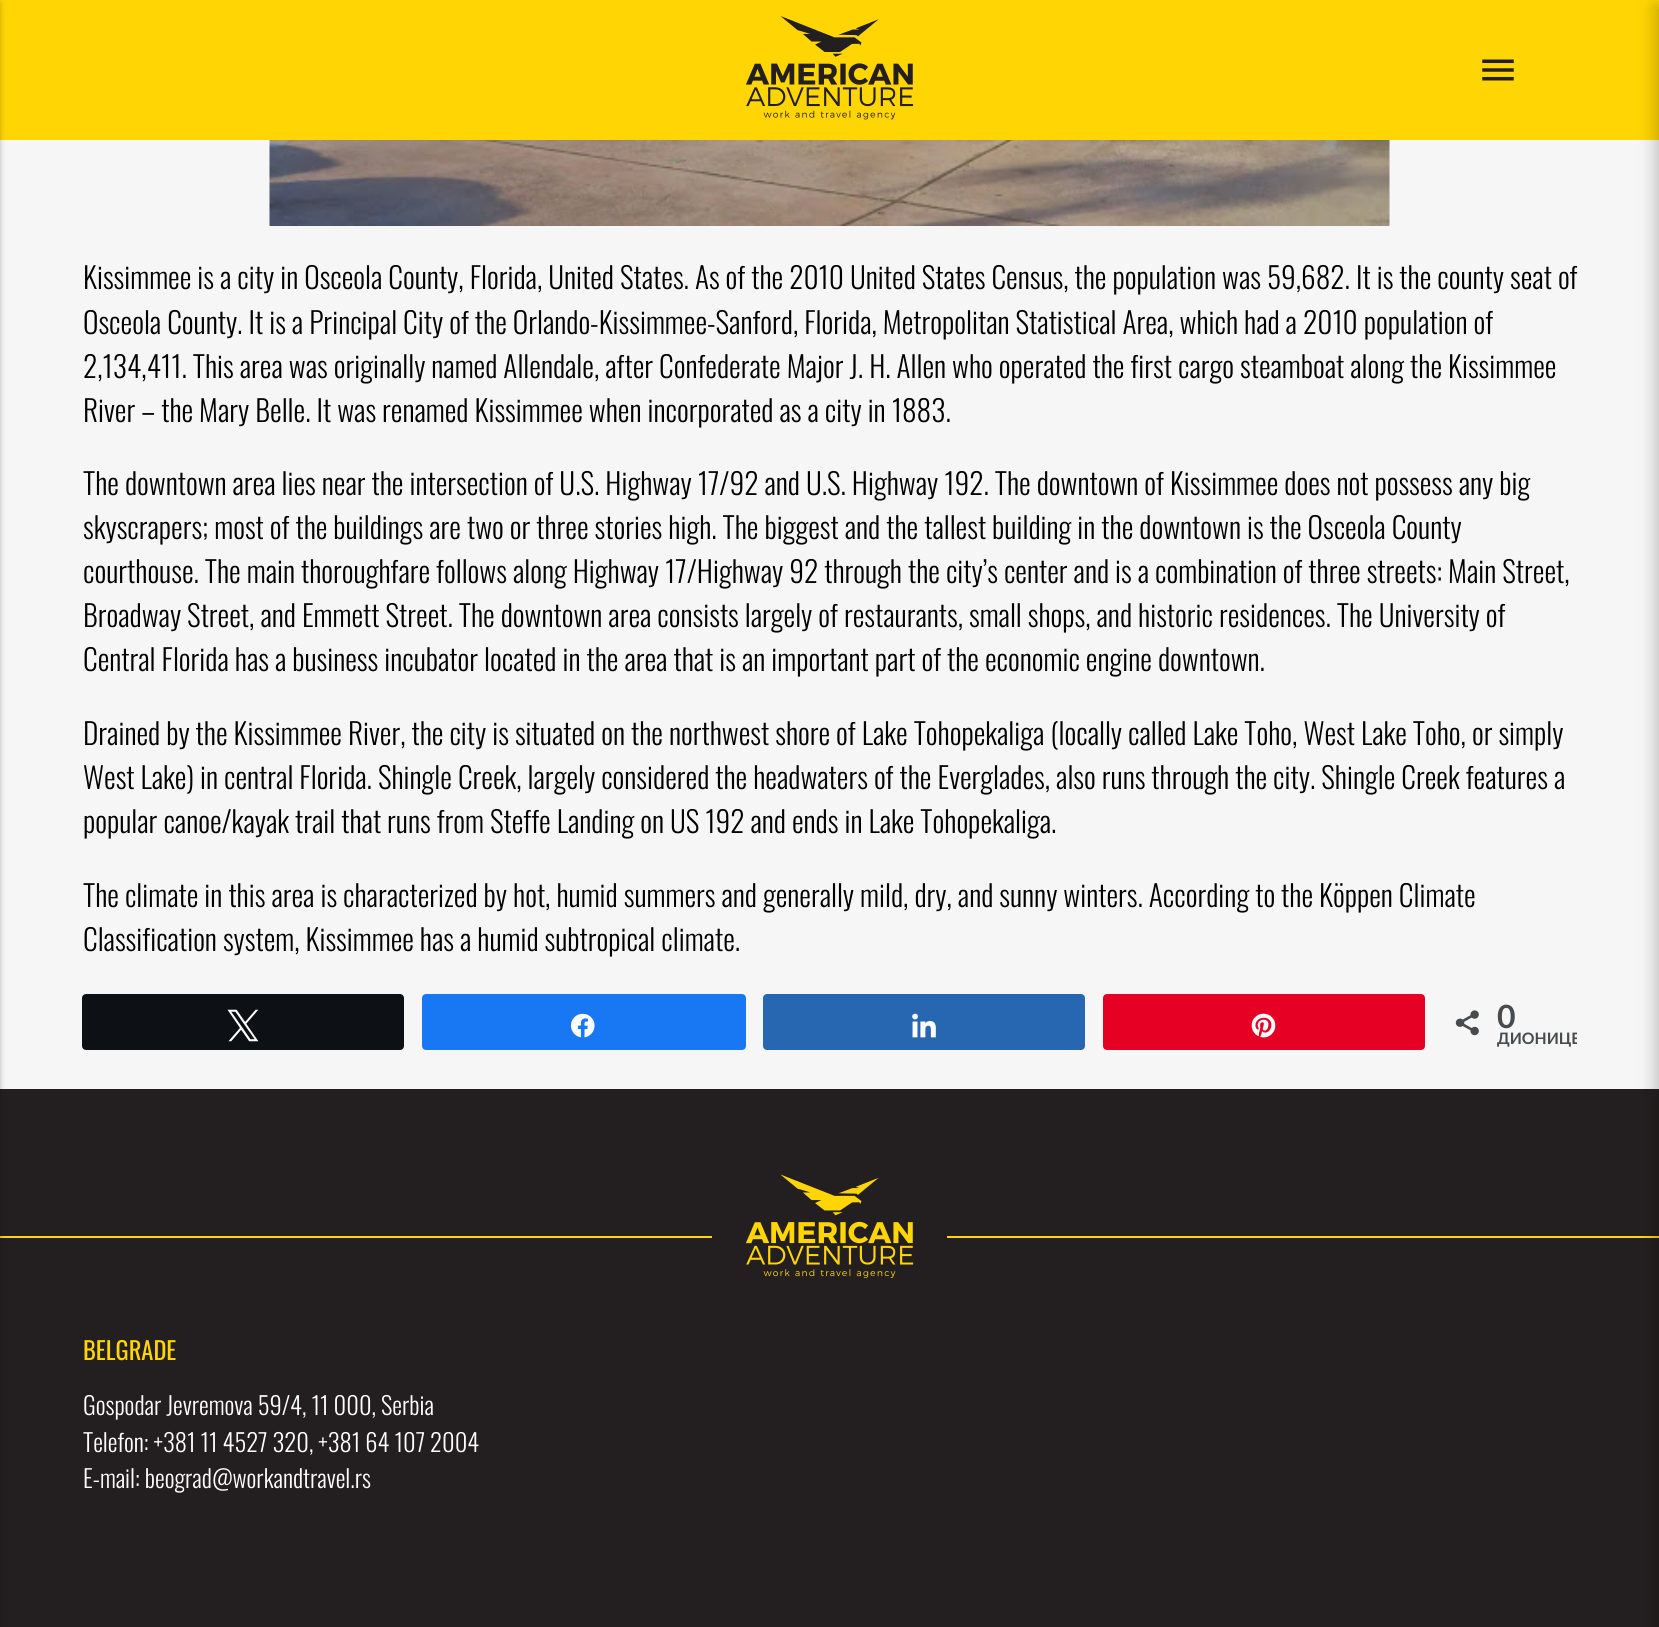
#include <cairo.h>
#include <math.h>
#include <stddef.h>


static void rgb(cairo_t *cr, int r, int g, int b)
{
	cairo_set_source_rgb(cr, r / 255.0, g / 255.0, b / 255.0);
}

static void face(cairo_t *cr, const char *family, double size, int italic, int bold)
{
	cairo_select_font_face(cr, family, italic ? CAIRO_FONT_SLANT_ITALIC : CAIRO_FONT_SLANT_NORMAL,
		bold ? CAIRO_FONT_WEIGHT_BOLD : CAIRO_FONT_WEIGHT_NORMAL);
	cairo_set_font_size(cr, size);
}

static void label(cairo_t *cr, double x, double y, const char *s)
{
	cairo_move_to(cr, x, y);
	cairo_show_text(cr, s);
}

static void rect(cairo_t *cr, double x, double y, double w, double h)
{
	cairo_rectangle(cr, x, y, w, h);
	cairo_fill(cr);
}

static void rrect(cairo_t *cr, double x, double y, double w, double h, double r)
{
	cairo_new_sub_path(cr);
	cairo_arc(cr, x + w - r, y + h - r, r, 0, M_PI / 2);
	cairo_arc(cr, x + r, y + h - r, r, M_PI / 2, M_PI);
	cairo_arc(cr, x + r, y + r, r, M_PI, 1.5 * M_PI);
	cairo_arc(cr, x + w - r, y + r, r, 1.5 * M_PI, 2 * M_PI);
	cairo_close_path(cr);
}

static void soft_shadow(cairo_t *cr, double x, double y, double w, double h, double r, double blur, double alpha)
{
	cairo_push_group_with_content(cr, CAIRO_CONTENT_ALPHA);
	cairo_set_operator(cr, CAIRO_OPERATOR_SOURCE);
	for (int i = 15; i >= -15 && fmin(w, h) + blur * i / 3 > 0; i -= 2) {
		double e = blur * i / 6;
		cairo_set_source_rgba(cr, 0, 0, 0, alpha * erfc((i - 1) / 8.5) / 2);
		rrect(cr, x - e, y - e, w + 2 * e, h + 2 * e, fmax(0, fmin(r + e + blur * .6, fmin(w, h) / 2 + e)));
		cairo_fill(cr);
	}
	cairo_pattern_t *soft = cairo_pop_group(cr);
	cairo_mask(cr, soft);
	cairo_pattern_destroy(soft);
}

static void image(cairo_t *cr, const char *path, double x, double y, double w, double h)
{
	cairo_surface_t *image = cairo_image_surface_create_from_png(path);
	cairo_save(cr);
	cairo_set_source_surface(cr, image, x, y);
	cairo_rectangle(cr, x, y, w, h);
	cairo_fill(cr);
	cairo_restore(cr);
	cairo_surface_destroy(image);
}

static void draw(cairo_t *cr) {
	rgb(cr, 246, 246, 246);
	cairo_paint(cr);
	rgb(cr, 255, 213, 3);
	rect(cr, 0, 0, 1659, 140);
	image(cr, "image0.png", 746, 16, 168, 104);
	image(cr, "image1.png", 1482, 59, 32, 22);
	rgb(cr, 35, 31, 32);
	rect(cr, 0, 1089, 1659, 538);
	rgb(cr, 255, 213, 3);
	rect(cr, 0, 1236, 1659, 2);
	rgb(cr, 0, 0, 0);
	soft_shadow(cr, -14, 2, 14, 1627, 0, 4.5, 0.12);
	soft_shadow(cr, -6, 4, 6, 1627, 0, 2, 0.14);
	image(cr, "image2.png", 269, 140, 1121, 86);
	face(cr, "Oswald Light", 29.4, 0, 0);
	rgb(cr, 0, 0, 0);
	label(cr, 83, 289, "Kissimmee is a city in Osceola County, Florida, United States. As of the 2010 United States Census, the population was 59,682. It is the county seat of");
	label(cr, 83, 334, "Osceola County. It is a Principal City of the Orlando-Kissimmee-Sanford, Florida, Metropolitan Statistical Area, which had a 2010 population of");
	label(cr, 83, 378, "2,134,411. This area was originally named Allendale, after Confederate Major J. H. Allen who operated the first cargo steamboat along the Kissimmee");
	label(cr, 83, 422, "River – the Mary Belle. It was renamed Kissimmee when incorporated as a city in 1883.");
	label(cr, 83, 495, "The downtown area lies near the intersection of U.S. Highway 17/92 and U.S. Highway 192. The downtown of Kissimmee does not possess any big");
	label(cr, 83, 539, "skyscrapers; most of the buildings are two or three stories high. The biggest and the tallest building in the downtown is the Osceola County");
	label(cr, 83, 583, "courthouse. The main thoroughfare follows along Highway 17/Highway 92 through the city’s center and is a combination of three streets: Main Street,");
	label(cr, 83, 627, "Broadway Street, and Emmett Street. The downtown area consists largely of restaurants, small shops, and historic residences. The University of");
	label(cr, 83, 671, "Central Florida has a business incubator located in the area that is an important part of the economic engine downtown.");
	label(cr, 83, 745, "Drained by the Kissimmee River, the city is situated on the northwest shore of Lake Tohopekaliga (locally called Lake Toho, West Lake Toho, or simply");
	label(cr, 83, 789, "West Lake) in central Florida. Shingle Creek, largely considered the headwaters of the Everglades, also runs through the city. Shingle Creek features a");
	label(cr, 83, 833, "popular canoe/kayak trail that runs from Steffe Landing on US 192 and ends in Lake Tohopekaliga.");
	label(cr, 83, 907, "The climate in this area is characterized by hot, humid summers and generally mild, dry, and sunny winters. According to the Köppen Climate");
	label(cr, 83, 951, "Classification system, Kissimmee has a humid subtropical climate.");
	rgb(cr, 13, 16, 20);
	rrect(cr, 83, 995, 320, 54, 3);
	cairo_fill_preserve(cr);
	cairo_stroke(cr);
	image(cr, "image3.png", 227, 1009, 32, 33);
	rgb(cr, 24, 119, 242);
	rrect(cr, 423, 995, 322, 54, 3);
	cairo_fill_preserve(cr);
	cairo_stroke(cr);
	image(cr, "image4.png", 570, 1013, 25, 25);
	rgb(cr, 39, 103, 177);
	rrect(cr, 764, 995, 320, 54, 3);
	cairo_fill_preserve(cr);
	cairo_stroke(cr);
	image(cr, "image5.png", 912, 1013, 24, 25);
	rgb(cr, 230, 0, 35);
	rrect(cr, 1104, 995, 320, 54, 3);
	cairo_fill_preserve(cr);
	cairo_stroke(cr);
	image(cr, "image6.png", 1251, 1013, 25, 25);
	image(cr, "image7.png", 1455, 1010, 24, 26);
	face(cr, "Lato", 32, 0, 1);
	rgb(cr, 71, 75, 77);
	label(cr, 1497, 1028, "0");
	cairo_save(cr);
	cairo_rectangle(cr, 82, 994, 1495, 60);
	cairo_clip(cr);
	face(cr, "Lato", 15.75, 0, 1);
	label(cr, 1497, 1044, "ДИОНИЦЕ");
	cairo_restore(cr);
	rgb(cr, 0, 0, 0);
	soft_shadow(cr, 1654, 5, 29, 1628, 0, 8, 0.2);
	rgb(cr, 35, 31, 32);
	rect(cr, 712, 1236, 235, 2);
	image(cr, "image8.png", 746, 1174, 168, 104);
	face(cr, "Oswald", 24.5, 0, 0);
	rgb(cr, 255, 213, 3);
	label(cr, 83, 1360, "BELGRADE");
	face(cr, "Oswald Light", 24.5, 0, 0);
	rgb(cr, 255, 255, 255);
	label(cr, 83, 1415, "Gospodar Jevremova 59/4, 11 000, Serbia");
	label(cr, 83, 1452, "Telefon: +381 11 4527 320, +381 64 107 2004");
	label(cr, 83, 1488, "E-mail: beograd@workandtravel.rs");
}

int main(void) {
	cairo_surface_t *surface = cairo_image_surface_create(CAIRO_FORMAT_RGB24, 1659, 1627);
	cairo_t *cr = cairo_create(surface);
	cairo_font_options_t *options = cairo_font_options_create();
	cairo_font_options_set_hint_metrics(options, CAIRO_HINT_METRICS_OFF);
	cairo_font_options_set_hint_style(options, CAIRO_HINT_STYLE_NONE);
	cairo_set_font_options(cr, options);
	cairo_set_miter_limit(cr, 4);
	draw(cr);
	cairo_surface_write_to_png(surface, "render.png");
	cairo_font_options_destroy(options);
	cairo_destroy(cr);
	cairo_surface_destroy(surface);
	return 0;
}
